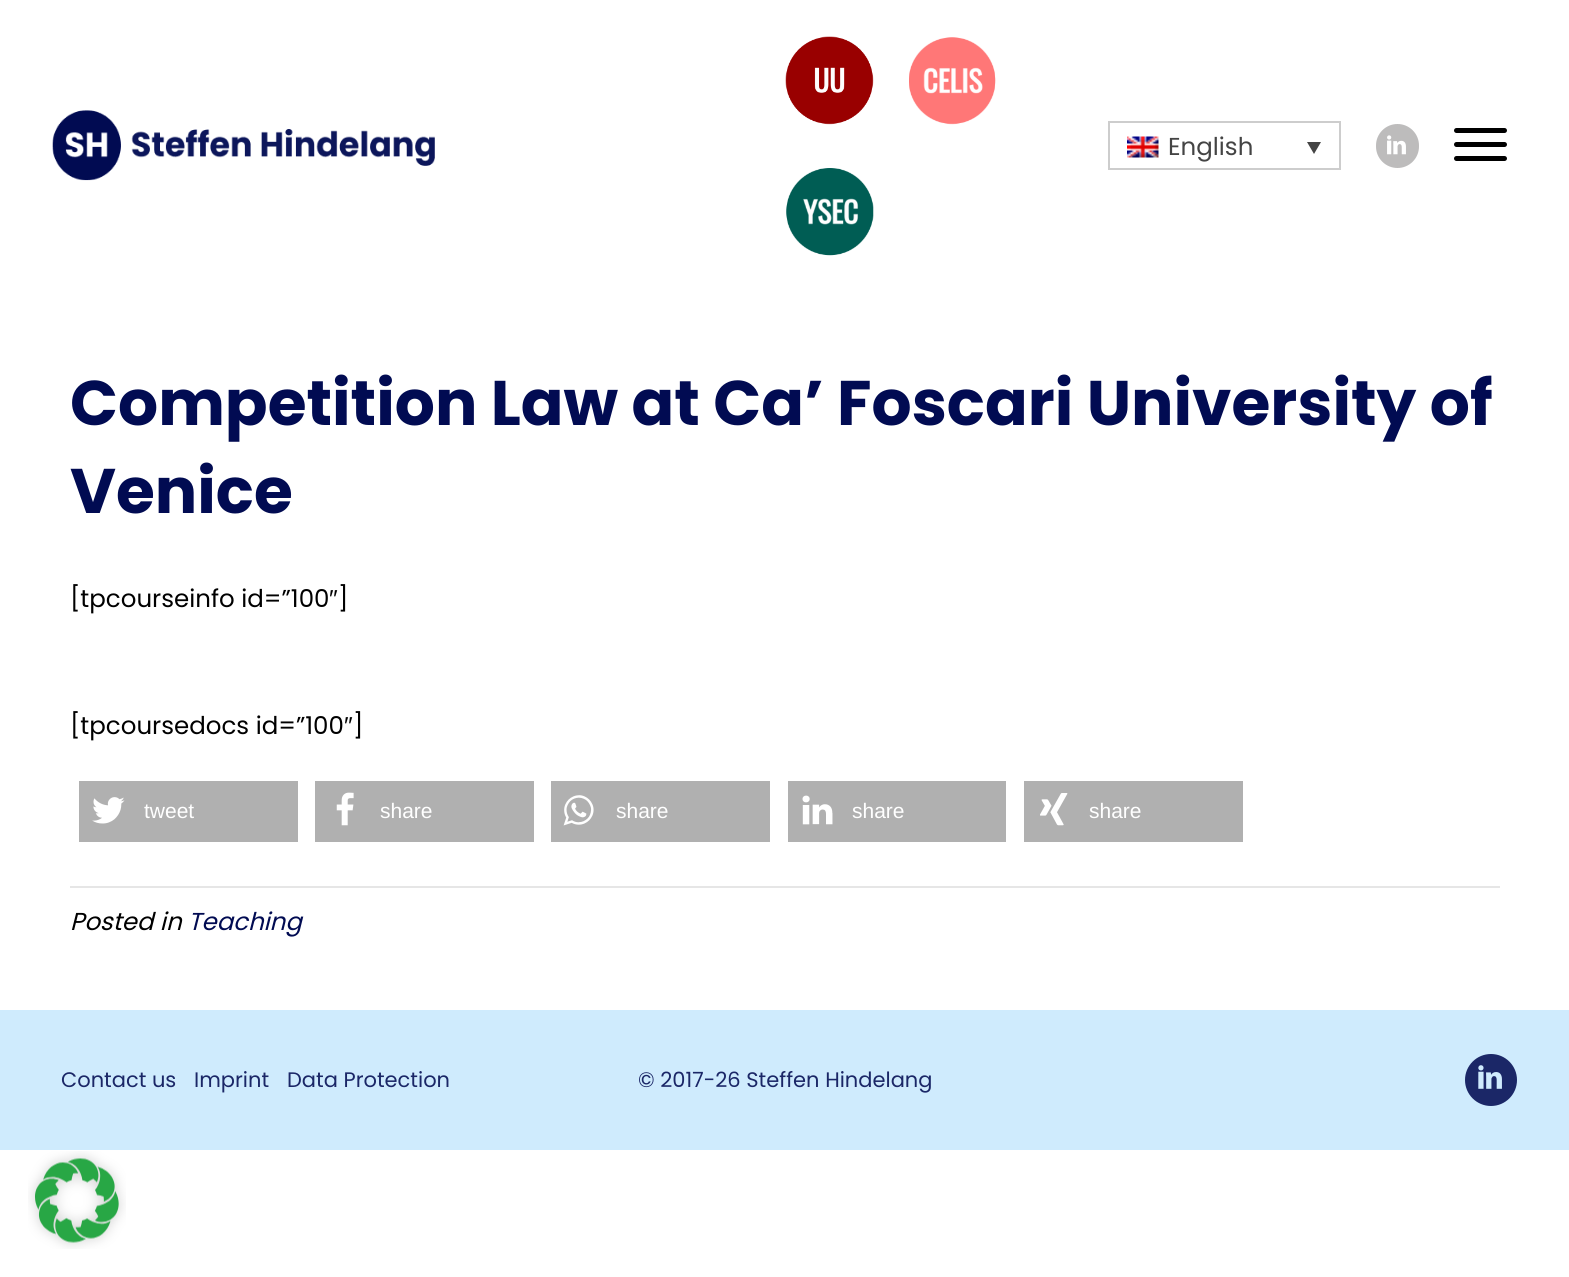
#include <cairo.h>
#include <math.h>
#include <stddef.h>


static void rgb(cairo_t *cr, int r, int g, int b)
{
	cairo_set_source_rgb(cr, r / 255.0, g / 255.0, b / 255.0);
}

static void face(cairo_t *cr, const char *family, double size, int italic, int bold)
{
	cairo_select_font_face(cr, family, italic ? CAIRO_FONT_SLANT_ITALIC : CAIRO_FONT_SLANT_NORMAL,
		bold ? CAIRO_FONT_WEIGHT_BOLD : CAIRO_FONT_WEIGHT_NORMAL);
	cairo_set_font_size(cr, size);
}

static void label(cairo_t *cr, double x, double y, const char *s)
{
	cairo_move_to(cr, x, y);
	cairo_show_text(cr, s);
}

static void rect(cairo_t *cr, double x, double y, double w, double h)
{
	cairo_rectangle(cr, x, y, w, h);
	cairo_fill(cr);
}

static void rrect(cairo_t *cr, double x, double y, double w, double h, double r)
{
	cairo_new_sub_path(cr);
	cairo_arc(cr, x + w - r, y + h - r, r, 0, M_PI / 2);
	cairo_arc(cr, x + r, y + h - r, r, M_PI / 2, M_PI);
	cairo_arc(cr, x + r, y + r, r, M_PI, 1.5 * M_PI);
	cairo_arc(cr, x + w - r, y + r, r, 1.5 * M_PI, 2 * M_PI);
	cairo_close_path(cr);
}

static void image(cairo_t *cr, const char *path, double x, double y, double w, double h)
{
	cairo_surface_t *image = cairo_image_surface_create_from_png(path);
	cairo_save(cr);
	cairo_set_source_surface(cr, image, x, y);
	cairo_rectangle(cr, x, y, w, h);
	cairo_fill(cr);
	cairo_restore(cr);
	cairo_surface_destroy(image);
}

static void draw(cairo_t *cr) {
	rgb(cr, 255, 255, 255);
	cairo_paint(cr);
	image(cr, "image0.png", 52, 110, 383, 71);
	image(cr, "image1.png", 785, 36, 89, 89);
	image(cr, "image2.png", 909, 37, 87, 88);
	image(cr, "image3.png", 786, 168, 88, 88);
	cairo_rectangle(cr, 1109, 122, 231, 47);
	rgb(cr, 205, 205, 205);
	cairo_stroke(cr);
	image(cr, "image4.png", 1127, 136, 32, 22);
	face(cr, "Poppins", 24.5, 0, 0);
	rgb(cr, 68, 68, 68);
	label(cr, 1168, 155, "English");
	cairo_new_path(cr);
	cairo_move_to(cr, 1307, 142);
	cairo_line_to(cr, 1321, 142);
	cairo_line_to(cr, 1314, 154);
	cairo_close_path(cr);
	cairo_fill(cr);
	rgb(cr, 189, 188, 188);
	rrect(cr, 1376, 124, 43, 44, 21.5);
	cairo_fill(cr);
	image(cr, "image5.png", 1387, 135, 19, 20);
	rgb(cr, 0, 0, 0);
	rrect(cr, 1454, 142, 53, 5, 2.5);
	cairo_fill(cr);
	rrect(cr, 1454, 128, 53, 5, 2.5);
	cairo_fill(cr);
	rrect(cr, 1454, 156, 53, 5, 2.5);
	cairo_fill(cr);
	face(cr, "Poppins", 63, 0, 1);
	rgb(cr, 1, 11, 82);
	label(cr, 70, 425, "Competition Law at Ca’ Foscari University of");
	label(cr, 70, 513, "Venice");
	face(cr, "Poppins", 24.5, 0, 0);
	rgb(cr, 0, 0, 0);
	label(cr, 70, 607, "[tpcourseinfo id=”100");
	face(cr, "Liberation Sans", 24.5, 0, 0);
	label(cr, 329, 607, "″");
	face(cr, "Poppins", 24.5, 0, 0);
	label(cr, 338, 607, "]");
	label(cr, 70, 734, "[tpcoursedocs id=”100");
	face(cr, "Liberation Sans", 24.5, 0, 0);
	label(cr, 344, 734, "″");
	face(cr, "Poppins", 24.5, 0, 0);
	label(cr, 353, 734, "]");
	rgb(cr, 176, 176, 176);
	rect(cr, 79, 781, 219, 61);
	image(cr, "image6.png", 92, 797, 33, 27);
	face(cr, "Liberation Sans", 21, 0, 0);
	rgb(cr, 255, 255, 255);
	label(cr, 144, 818, "tweet");
	rgb(cr, 176, 176, 176);
	rect(cr, 315, 781, 219, 61);
	image(cr, "image7.png", 336, 792, 18, 34);
	rgb(cr, 255, 255, 255);
	label(cr, 380, 818, "share");
	rgb(cr, 176, 176, 176);
	rect(cr, 551, 781, 219, 61);
	image(cr, "image8.png", 563, 795, 31, 31);
	rgb(cr, 255, 255, 255);
	label(cr, 616, 818, "share");
	rgb(cr, 176, 176, 176);
	rect(cr, 788, 781, 218, 61);
	image(cr, "image9.png", 802, 795, 31, 30);
	rgb(cr, 255, 255, 255);
	label(cr, 852, 818, "share");
	rgb(cr, 176, 176, 176);
	rect(cr, 1024, 781, 219, 61);
	image(cr, "image10.png", 1040, 793, 28, 33);
	rgb(cr, 255, 255, 255);
	label(cr, 1089, 818, "share");
	rgb(cr, 230, 230, 230);
	rect(cr, 70, 886, 1430, 2);
	face(cr, "Poppins", 24.5, 1, 0);
	rgb(cr, 0, 0, 0);
	label(cr, 70, 930, "Posted in");
	rgb(cr, 1, 11, 82);
	label(cr, 188, 930, "Teaching");
	rgb(cr, 207, 235, 253);
	rect(cr, 0, 1010, 1569, 140);
	face(cr, "Poppins", 21, 0, 0);
	rgb(cr, 27, 39, 103);
	label(cr, 61, 1087, "Contact us");
	label(cr, 194, 1087, "Imprint");
	label(cr, 287, 1087, "Data Protection");
	label(cr, 638, 1087, "© 2017-26 Steffen Hindelang");
	cairo_new_path(cr);
	cairo_arc(cr, 1491, 1080, 26, 0, 2 * M_PI);
	cairo_fill(cr);
	image(cr, "image11.png", 1478, 1065, 24, 24);
	image(cr, "image12.png", 28, 1151, 98, 98);
}

int main(void) {
	cairo_surface_t *surface = cairo_image_surface_create(CAIRO_FORMAT_RGB24, 1569, 1277);
	cairo_t *cr = cairo_create(surface);
	cairo_font_options_t *options = cairo_font_options_create();
	cairo_font_options_set_hint_metrics(options, CAIRO_HINT_METRICS_OFF);
	cairo_font_options_set_hint_style(options, CAIRO_HINT_STYLE_NONE);
	cairo_set_font_options(cr, options);
	cairo_set_miter_limit(cr, 4);
	draw(cr);
	cairo_surface_write_to_png(surface, "render.png");
	cairo_font_options_destroy(options);
	cairo_destroy(cr);
	cairo_surface_destroy(surface);
	return 0;
}
